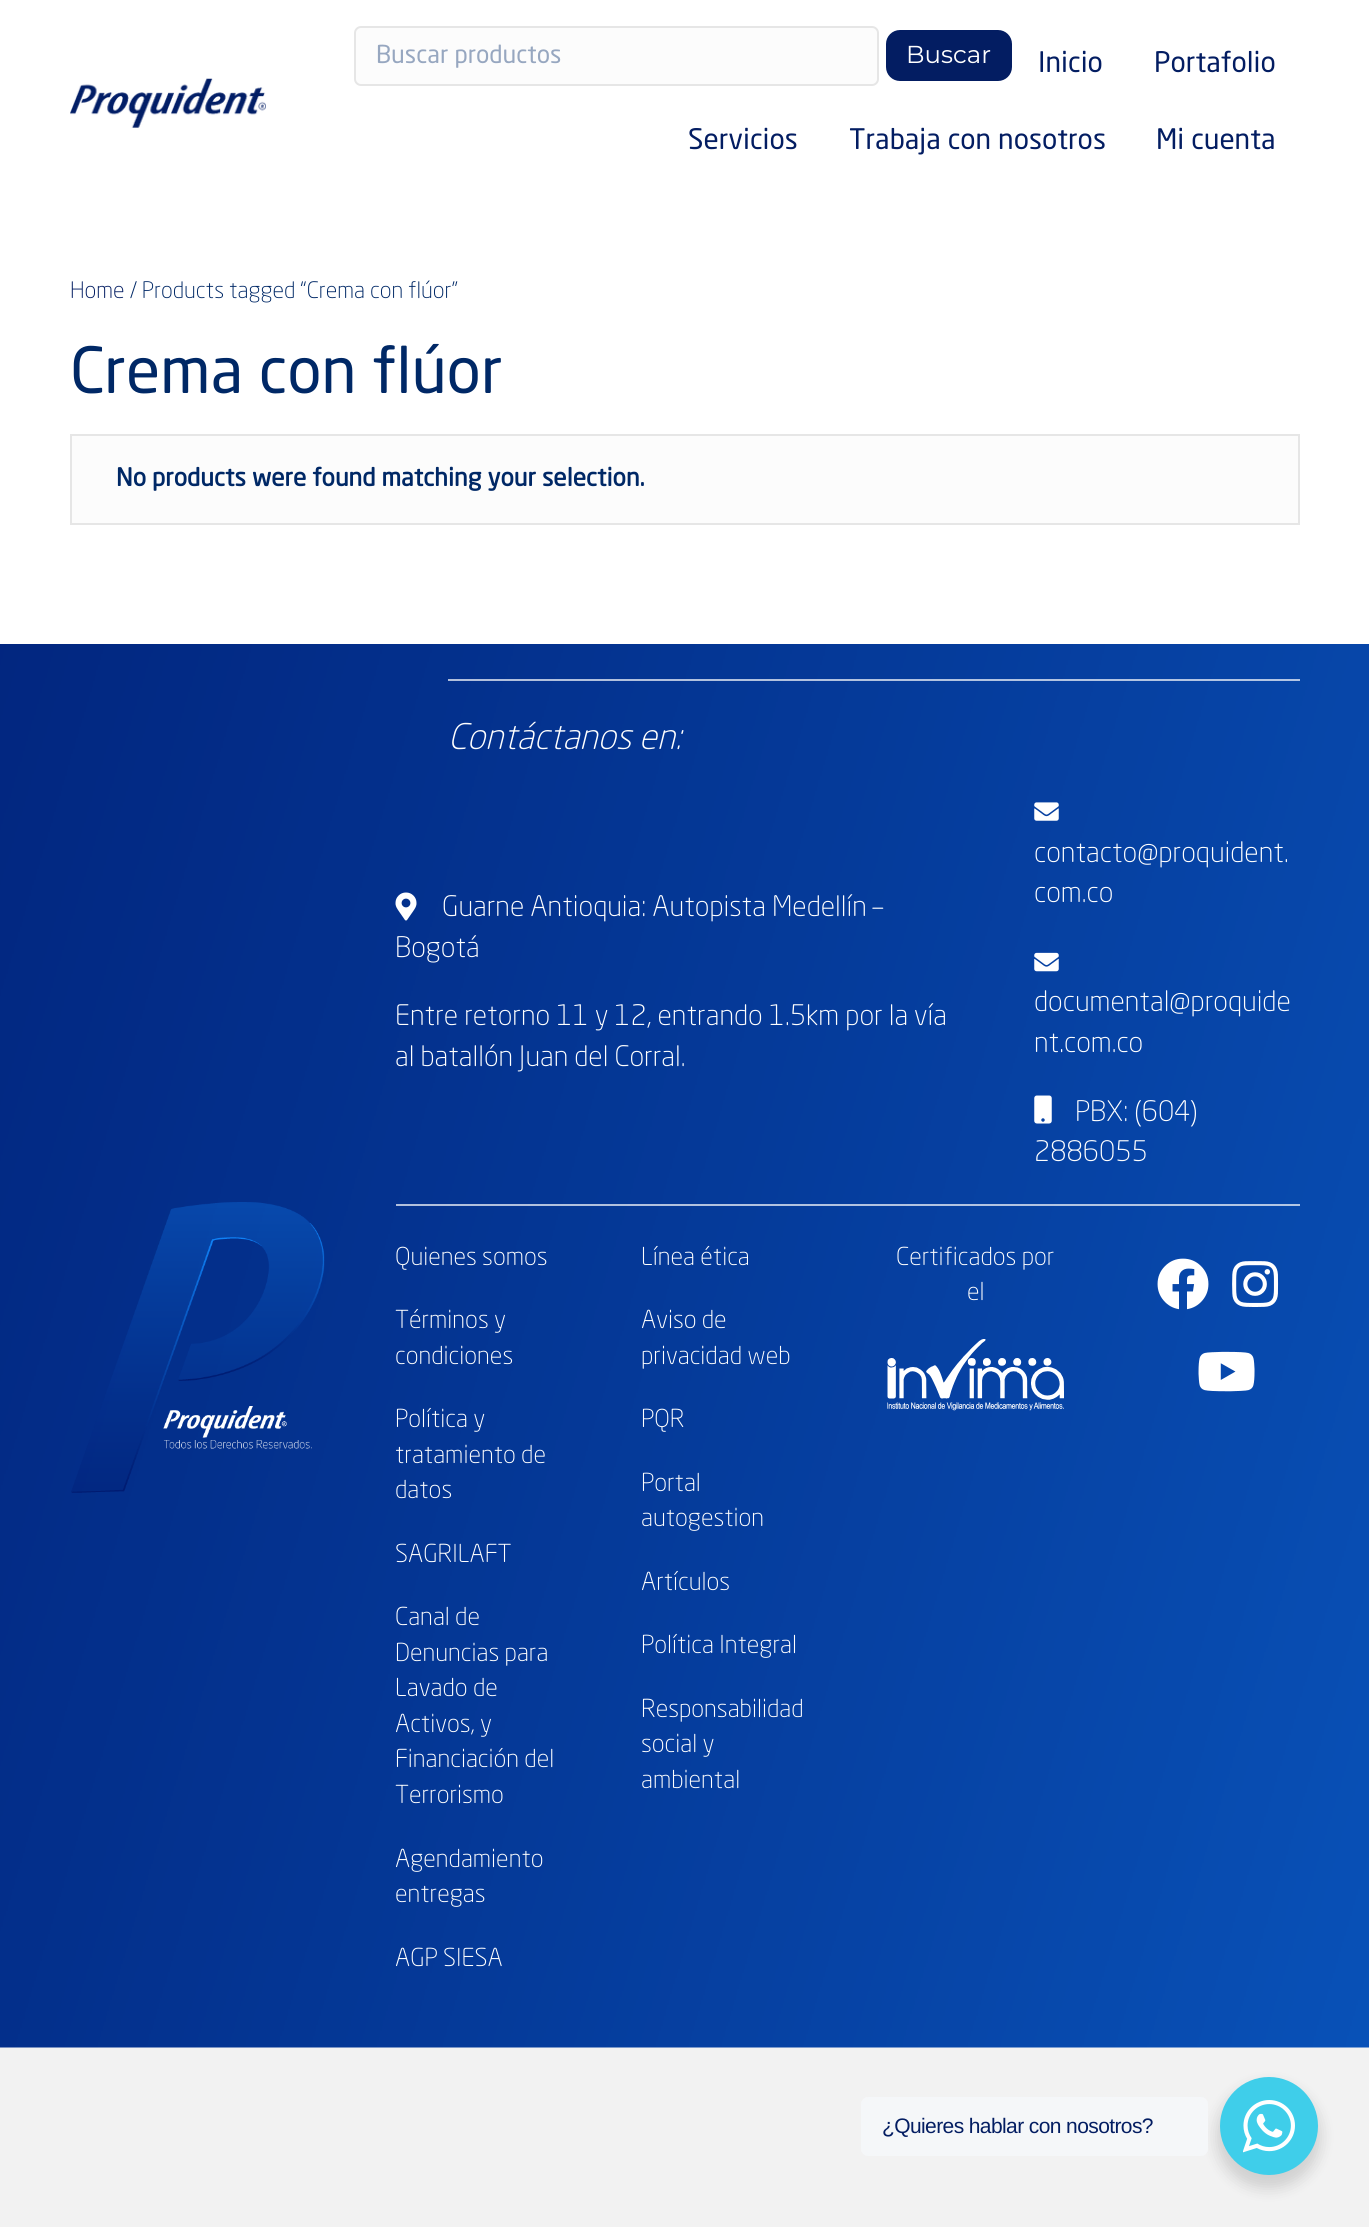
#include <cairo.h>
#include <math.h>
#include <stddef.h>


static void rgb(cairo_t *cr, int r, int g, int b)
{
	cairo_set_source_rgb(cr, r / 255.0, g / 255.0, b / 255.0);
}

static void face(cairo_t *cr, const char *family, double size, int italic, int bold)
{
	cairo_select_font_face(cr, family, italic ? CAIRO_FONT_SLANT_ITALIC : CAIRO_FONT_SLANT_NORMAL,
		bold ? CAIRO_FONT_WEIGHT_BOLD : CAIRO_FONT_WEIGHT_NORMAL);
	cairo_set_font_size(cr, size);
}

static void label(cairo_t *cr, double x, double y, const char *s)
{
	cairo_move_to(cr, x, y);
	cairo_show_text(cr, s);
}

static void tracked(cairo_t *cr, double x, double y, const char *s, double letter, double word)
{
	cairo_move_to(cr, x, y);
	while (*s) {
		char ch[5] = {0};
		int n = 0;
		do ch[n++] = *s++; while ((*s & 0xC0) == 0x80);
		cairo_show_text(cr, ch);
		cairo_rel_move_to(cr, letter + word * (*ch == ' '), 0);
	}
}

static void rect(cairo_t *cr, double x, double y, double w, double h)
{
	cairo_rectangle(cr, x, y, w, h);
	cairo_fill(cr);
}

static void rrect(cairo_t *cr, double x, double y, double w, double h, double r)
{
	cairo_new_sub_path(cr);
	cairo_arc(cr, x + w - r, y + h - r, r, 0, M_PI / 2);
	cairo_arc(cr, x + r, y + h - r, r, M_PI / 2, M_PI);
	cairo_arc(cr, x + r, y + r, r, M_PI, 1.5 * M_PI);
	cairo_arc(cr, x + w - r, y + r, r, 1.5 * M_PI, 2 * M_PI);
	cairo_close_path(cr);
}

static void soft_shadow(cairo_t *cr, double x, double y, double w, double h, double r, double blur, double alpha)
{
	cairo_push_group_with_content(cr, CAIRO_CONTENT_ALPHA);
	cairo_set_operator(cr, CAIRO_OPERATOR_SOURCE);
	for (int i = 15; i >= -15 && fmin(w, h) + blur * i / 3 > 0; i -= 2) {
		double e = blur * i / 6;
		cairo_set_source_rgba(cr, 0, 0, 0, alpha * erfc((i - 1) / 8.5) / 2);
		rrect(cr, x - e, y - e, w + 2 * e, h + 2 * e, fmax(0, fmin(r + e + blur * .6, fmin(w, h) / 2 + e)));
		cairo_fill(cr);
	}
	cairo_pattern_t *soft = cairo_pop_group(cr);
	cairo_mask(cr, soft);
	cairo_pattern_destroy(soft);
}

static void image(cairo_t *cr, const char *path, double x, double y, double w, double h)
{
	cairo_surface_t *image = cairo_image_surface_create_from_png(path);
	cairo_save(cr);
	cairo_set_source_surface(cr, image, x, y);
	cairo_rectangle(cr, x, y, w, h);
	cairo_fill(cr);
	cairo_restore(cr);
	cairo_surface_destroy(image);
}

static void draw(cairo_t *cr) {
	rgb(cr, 242, 242, 242);
	cairo_paint(cr);
	rgb(cr, 255, 255, 255);
	rect(cr, 0, 0, 1369, 644);
	image(cr, "image0.png", 70, 78, 196, 50);
	rgb(cr, 252, 252, 252);
	rrect(cr, 355, 27, 523, 58, 6);
	cairo_fill_preserve(cr);
	rgb(cr, 230, 230, 230);
	cairo_stroke(cr);
	face(cr, "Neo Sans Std", 24.5, 0, 0);
	rgb(cr, 151, 167, 192);
	label(cr, 376, 63, "Buscar productos");
	rgb(cr, 3, 29, 98);
	rrect(cr, 886, 30, 126, 51, 14);
	cairo_fill(cr);
	face(cr, "Montserrat Thin", 24.5, 0, 0);
	rgb(cr, 255, 255, 255);
	label(cr, 906, 63, "Buscar");
	face(cr, "Neo Sans Std", 28, 0, 0);
	rgb(cr, 3, 29, 98);
	label(cr, 1038, 72, "Inicio");
	label(cr, 1154, 72, "Portafolio");
	label(cr, 688, 149, "Servicios");
	label(cr, 849, 149, "Trabaja con nosotros");
	label(cr, 1156, 149, "Mi cuenta");
	face(cr, "Neo Sans Std Light", 22.5, 0, 0);
	label(cr, 70, 298, "Home");
	rgb(cr, 0, 40, 102);
	label(cr, 130, 298, "/ Products tagged “Crema con flúor”");
	face(cr, "Neo Sans Std", 63, 0, 0);
	label(cr, 70, 393, "Crema con flúor");
	rgb(cr, 252, 252, 252);
	cairo_rectangle(cr, 71, 435, 1228, 89);
	cairo_fill_preserve(cr);
	rgb(cr, 230, 230, 230);
	cairo_stroke(cr);
	face(cr, "Neo Sans Std", 24.5, 0, 1);
	rgb(cr, 0, 40, 102);
	label(cr, 116, 486, "No products were found matching your selection.");
	image(cr, "image1.png", 0, 644, 1369, 1404);
	image(cr, "image2.png", 71, 1202, 254, 291);
	cairo_set_source_rgba(cr, 1, 1, 1, 0.69);
	rect(cr, 448, 679, 852, 2);
	face(cr, "Neo Sans Std Light", 35, 1, 0);
	rgb(cr, 255, 255, 255);
	label(cr, 448, 749, "Contáctanos en:");
	image(cr, "image3.png", 395, 892, 22, 29);
	face(cr, "Neo Sans Std Light", 28, 0, 0);
	label(cr, 442, 916, "Guarne Antioquia: Autopista Medellín –");
	label(cr, 395, 957, "Bogotá");
	label(cr, 395, 1025, "Entre retorno 11 y 12, entrando 1.5km por la vía");
	label(cr, 395, 1066, "al batallón Juan del Corral.");
	image(cr, "image4.png", 1034, 802, 25, 19);
	label(cr, 1034, 862, "contacto@proquident.");
	label(cr, 1034, 902, "com.co");
	image(cr, "image5.png", 1034, 952, 25, 20);
	label(cr, 1034, 1011, "documental@proquide");
	label(cr, 1034, 1052, "nt.com.co");
	image(cr, "image6.png", 1034, 1095, 18, 29);
	label(cr, 1075, 1121, "PBX: (604)");
	label(cr, 1034, 1161, "2886055");
	cairo_set_source_rgba(cr, 1, 1, 1, 0.69);
	rect(cr, 396, 1204, 904, 2);
	face(cr, "Neo Sans Std Light", 24.5, 0, 0);
	rgb(cr, 255, 255, 255);
	label(cr, 395, 1265, "Quienes somos");
	label(cr, 395, 1328, "Términos y");
	label(cr, 395, 1364, "condiciones");
	label(cr, 395, 1427, "Política y");
	label(cr, 395, 1463, "tratamiento de");
	label(cr, 395, 1498, "datos");
	label(cr, 395, 1562, "SAGRILAFT");
	label(cr, 395, 1625, "Canal de");
	label(cr, 395, 1661, "Denuncias para");
	label(cr, 395, 1696, "Lavado de");
	label(cr, 395, 1732, "Activos, y");
	label(cr, 395, 1767, "Financiación del");
	label(cr, 395, 1803, "Terrorismo");
	label(cr, 395, 1867, "Agendamiento");
	label(cr, 395, 1902, "entregas");
	label(cr, 395, 1966, "AGP SIESA");
	label(cr, 641, 1265, "Línea ética");
	label(cr, 641, 1328, "Aviso de");
	label(cr, 641, 1364, "privacidad web");
	label(cr, 641, 1427, "PQR");
	label(cr, 641, 1491, "Portal");
	label(cr, 641, 1526, "autogestion");
	label(cr, 641, 1590, "Artículos");
	label(cr, 641, 1653, "Política Integral");
	label(cr, 641, 1717, "Responsabilidad");
	label(cr, 641, 1752, "social y");
	label(cr, 641, 1788, "ambiental");
	label(cr, 896, 1265, "Certificados por");
	label(cr, 967, 1300, "el");
	image(cr, "image7.png", 887, 1339, 177, 72);
	image(cr, "image8.png", 1157, 1258, 52, 52);
	image(cr, "image9.png", 1232, 1261, 47, 46);
	image(cr, "image10.png", 1198, 1351, 57, 41);
	rgb(cr, 0, 0, 0);
	soft_shadow(cr, 1216, 2084, 105, 105, 52.5, 7, 0.14);
	rgb(cr, 245, 247, 249);
	rrect(cr, 861, 2097, 347, 59, 7);
	cairo_fill(cr);
	face(cr, "Liberation Sans", 21, 0, 0);
	rgb(cr, 3, 29, 98);
	tracked(cr, 882, 2133, "¿Quieres hablar con nosotros?", -0.6, 0);
	rgb(cr, 63, 206, 234);
	cairo_new_path(cr);
	cairo_arc(cr, 1269, 2126, 49, 0, 2 * M_PI);
	cairo_fill(cr);
	image(cr, "image11.png", 1243, 2100, 52, 53);
}

int main(void) {
	cairo_surface_t *surface = cairo_image_surface_create(CAIRO_FORMAT_RGB24, 1369, 2227);
	cairo_t *cr = cairo_create(surface);
	cairo_font_options_t *options = cairo_font_options_create();
	cairo_font_options_set_hint_metrics(options, CAIRO_HINT_METRICS_OFF);
	cairo_font_options_set_hint_style(options, CAIRO_HINT_STYLE_NONE);
	cairo_set_font_options(cr, options);
	cairo_set_miter_limit(cr, 4);
	draw(cr);
	cairo_surface_write_to_png(surface, "render.png");
	cairo_font_options_destroy(options);
	cairo_destroy(cr);
	cairo_surface_destroy(surface);
	return 0;
}
